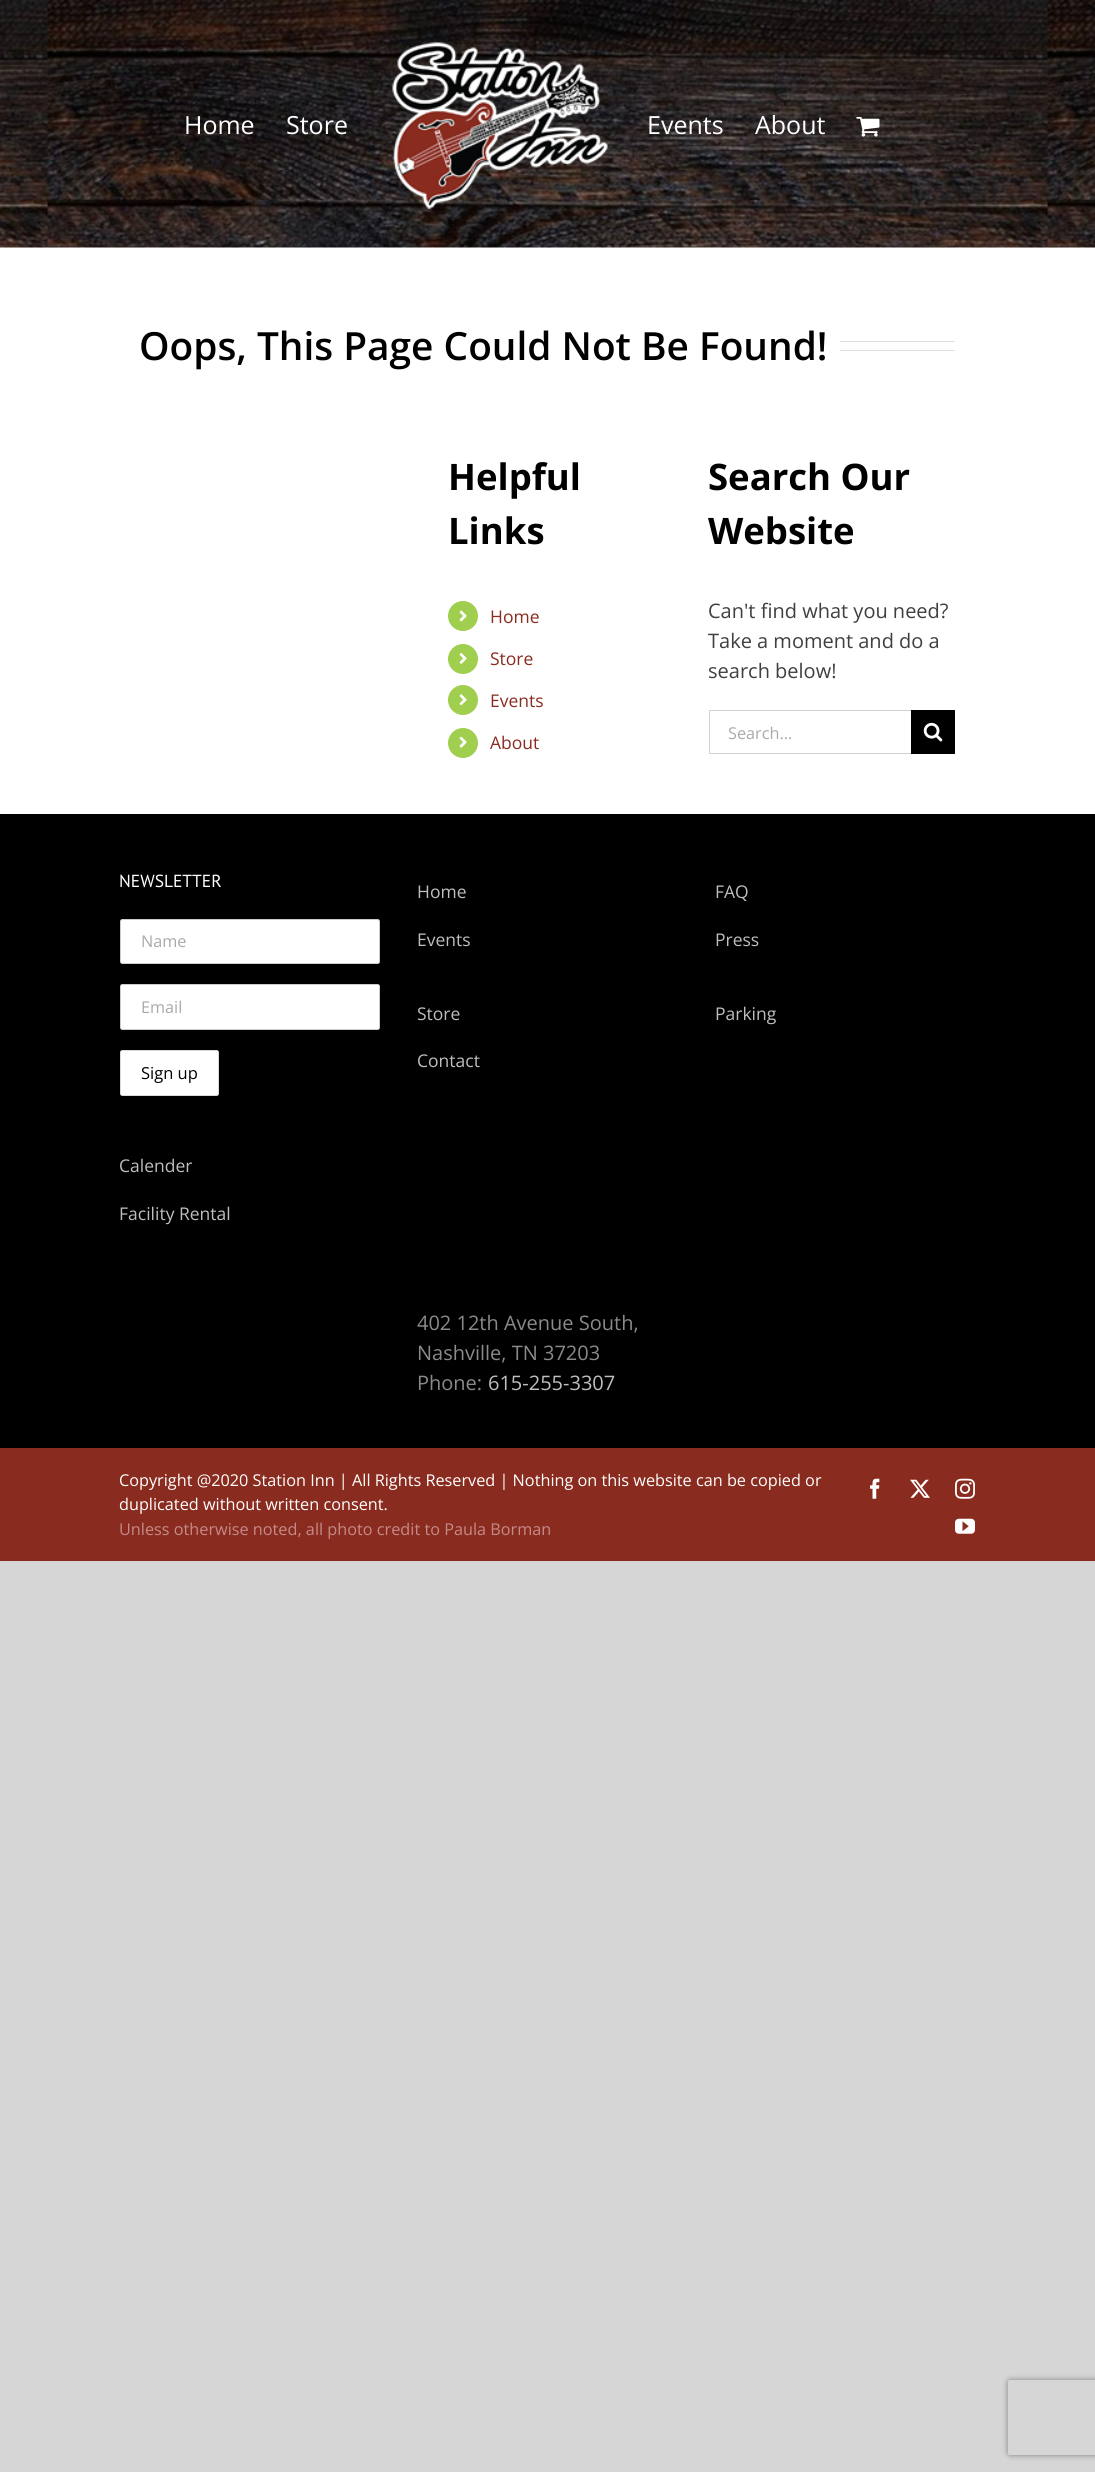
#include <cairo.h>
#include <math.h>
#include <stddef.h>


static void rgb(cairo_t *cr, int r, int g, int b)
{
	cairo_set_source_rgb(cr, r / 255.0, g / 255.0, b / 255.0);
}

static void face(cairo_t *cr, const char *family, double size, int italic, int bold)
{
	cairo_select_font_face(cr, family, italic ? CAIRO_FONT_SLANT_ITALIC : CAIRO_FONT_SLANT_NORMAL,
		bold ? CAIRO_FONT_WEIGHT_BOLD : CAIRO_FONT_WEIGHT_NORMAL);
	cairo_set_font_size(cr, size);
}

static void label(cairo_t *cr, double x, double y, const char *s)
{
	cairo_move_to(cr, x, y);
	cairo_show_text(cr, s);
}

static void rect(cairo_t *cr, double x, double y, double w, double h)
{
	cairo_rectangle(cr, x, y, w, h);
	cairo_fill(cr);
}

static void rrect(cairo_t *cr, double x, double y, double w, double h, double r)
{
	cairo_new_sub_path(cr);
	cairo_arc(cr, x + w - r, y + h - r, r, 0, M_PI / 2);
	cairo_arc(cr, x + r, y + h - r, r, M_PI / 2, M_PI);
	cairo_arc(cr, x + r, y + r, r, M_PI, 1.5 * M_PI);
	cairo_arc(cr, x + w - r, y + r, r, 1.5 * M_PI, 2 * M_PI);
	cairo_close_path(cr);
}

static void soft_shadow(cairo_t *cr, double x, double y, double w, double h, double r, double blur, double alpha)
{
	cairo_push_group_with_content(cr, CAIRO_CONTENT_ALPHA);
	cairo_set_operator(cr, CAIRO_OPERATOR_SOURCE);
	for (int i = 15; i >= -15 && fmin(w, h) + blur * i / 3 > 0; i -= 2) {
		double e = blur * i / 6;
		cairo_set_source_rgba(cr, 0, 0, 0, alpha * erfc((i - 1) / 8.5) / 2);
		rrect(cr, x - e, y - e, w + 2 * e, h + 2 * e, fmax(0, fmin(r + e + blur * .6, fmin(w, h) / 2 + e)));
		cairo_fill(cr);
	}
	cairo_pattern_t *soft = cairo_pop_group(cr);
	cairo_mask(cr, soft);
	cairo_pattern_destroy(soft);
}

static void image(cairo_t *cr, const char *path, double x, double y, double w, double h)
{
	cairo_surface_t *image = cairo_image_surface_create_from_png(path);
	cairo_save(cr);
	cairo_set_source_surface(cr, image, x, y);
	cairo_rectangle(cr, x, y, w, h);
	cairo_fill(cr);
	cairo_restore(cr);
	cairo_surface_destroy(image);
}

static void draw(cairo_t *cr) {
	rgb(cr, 215, 214, 214);
	cairo_paint(cr);
	rgb(cr, 255, 255, 255);
	rect(cr, 0, 247, 1095, 567);
	image(cr, "image0.png", 0, 0, 1095, 248);
	face(cr, "Open Sans", 25, 0, 0);
	label(cr, 184, 134, "Home");
	label(cr, 286, 134, "Store");
	image(cr, "image1.png", 392, 42, 216, 167);
	label(cr, 647, 134, "Events");
	label(cr, 755, 134, "About");
	image(cr, "image2.png", 856, 116, 24, 21);
	face(cr, "Open Sans SemiBold", 38.8, 0, 0);
	rgb(cr, 0, 0, 0);
	label(cr, 139, 360, "Oops, This Page Could Not Be Found!");
	rgb(cr, 224, 222, 222);
	rect(cr, 840, 341, 115, 1);
	rect(cr, 840, 350, 115, 1);
	face(cr, "Open Sans", 36.5, 0, 1);
	rgb(cr, 0, 0, 0);
	label(cr, 448, 490, "Helpful");
	label(cr, 448, 544, "Links");
	rgb(cr, 160, 206, 78);
	cairo_new_path(cr);
	cairo_arc(cr, 463, 616, 15, 0, 2 * M_PI);
	cairo_fill(cr);
	image(cr, "image3.png", 459, 610, 8, 12);
	face(cr, "Open Sans", 17.5, 0, 0);
	rgb(cr, 137, 43, 30);
	label(cr, 490, 623, "Home");
	rgb(cr, 160, 206, 78);
	cairo_new_path(cr);
	cairo_arc(cr, 463, 659, 15, 0, 2 * M_PI);
	cairo_fill(cr);
	image(cr, "image4.png", 459, 653, 8, 11);
	rgb(cr, 137, 43, 30);
	label(cr, 490, 665, "Store");
	rgb(cr, 160, 206, 78);
	cairo_new_path(cr);
	cairo_arc(cr, 463, 700, 15, 0, 2 * M_PI);
	cairo_fill(cr);
	image(cr, "image5.png", 459, 694, 8, 12);
	rgb(cr, 137, 43, 30);
	label(cr, 490, 707, "Events");
	rgb(cr, 160, 206, 78);
	cairo_new_path(cr);
	cairo_arc(cr, 463, 743, 15, 0, 2 * M_PI);
	cairo_fill(cr);
	image(cr, "image6.png", 459, 736, 8, 12);
	rgb(cr, 137, 43, 30);
	label(cr, 490, 749, "About");
	face(cr, "Open Sans", 36.5, 0, 1);
	rgb(cr, 0, 0, 0);
	label(cr, 708, 490, "Search Our");
	label(cr, 708, 544, "Website");
	face(cr, "Open Sans", 20, 0, 0);
	rgb(cr, 63, 63, 63);
	label(cr, 708, 618, "Can't find what you need?");
	label(cr, 708, 648, "Take a moment and do a");
	label(cr, 708, 678, "search below!");
	rgb(cr, 210, 210, 210);
	rect(cr, 709, 710, 202, 1);
	rect(cr, 709, 753, 202, 1);
	rect(cr, 709, 710, 1, 44);
	face(cr, "Open Sans", 16.25, 0, 0);
	rgb(cr, 170, 169, 169);
	label(cr, 728, 739, "Search...");
	rgb(cr, 0, 0, 0);
	rect(cr, 911, 710, 44, 44);
	image(cr, "image7.png", 923, 722, 20, 20);
	rect(cr, 0, 814, 1095, 634);
	face(cr, "PT Sans", 17.5, 0, 0);
	rgb(cr, 255, 255, 255);
	label(cr, 119, 887, "NEWSLETTER");
	rrect(cr, 120.5, 919.5, 259, 44, 2);
	cairo_fill_preserve(cr);
	rgb(cr, 204, 204, 204);
	cairo_set_line_width(cr, 1);
	cairo_stroke(cr);
	face(cr, "Open Sans", 16.25, 0, 0);
	rgb(cr, 170, 169, 169);
	label(cr, 141, 947, "Name");
	rgb(cr, 255, 255, 255);
	rrect(cr, 120.5, 984.5, 259, 45, 2);
	cairo_fill_preserve(cr);
	rgb(cr, 204, 204, 204);
	cairo_stroke(cr);
	rgb(cr, 170, 169, 169);
	label(cr, 141, 1013, "Email");
	rgb(cr, 255, 255, 255);
	rrect(cr, 120.5, 1050.5, 98, 45, 2);
	cairo_fill_preserve(cr);
	rgb(cr, 217, 217, 217);
	cairo_stroke(cr);
	face(cr, "Open Sans", 16.5, 0, 0);
	rgb(cr, 0, 0, 0);
	label(cr, 141, 1079, "Sign up");
	face(cr, "Open Sans", 17.5, 0, 0);
	rgb(cr, 191, 191, 191);
	label(cr, 417, 898, "Home");
	label(cr, 417, 946, "Events");
	label(cr, 417, 1020, "Store");
	label(cr, 417, 1067, "Contact");
	label(cr, 715, 898, "FAQ");
	label(cr, 715, 946, "Press");
	label(cr, 715, 1020, "Parking");
	label(cr, 119, 1172, "Calender");
	label(cr, 119, 1220, "Facility Rental");
	face(cr, "Open Sans", 20, 0, 0);
	rgb(cr, 140, 137, 137);
	label(cr, 417, 1330, "402 12th Avenue South,");
	label(cr, 417, 1360, "Nashville, TN 37203");
	label(cr, 417, 1390, "Phone:");
	rgb(cr, 191, 191, 191);
	label(cr, 488, 1390, "615-255-3307");
	rgb(cr, 137, 43, 30);
	rect(cr, 0, 1448, 1095, 113);
	face(cr, "Open Sans", 16.25, 0, 0);
	rgb(cr, 255, 255, 255);
	label(cr, 119, 1486, "Copyright @2020 Station Inn | All Rights Reserved | Nothing on this website can be copied or");
	label(cr, 119, 1510, "duplicated without written consent.");
	rgb(cr, 197, 138, 138);
	label(cr, 119, 1535, "Unless otherwise noted, all photo credit to Paula Borman");
	image(cr, "image8.png", 870, 1478, 10, 21);
	image(cr, "image9.png", 910, 1479, 20, 19);
	image(cr, "image10.png", 955, 1478, 20, 21);
	image(cr, "image11.png", 955, 1518, 20, 16);
	cairo_save(cr);
	cairo_set_fill_rule(cr, CAIRO_FILL_RULE_EVEN_ODD);
	cairo_new_path(cr);
	cairo_move_to(cr, 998, 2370);
	cairo_line_to(cr, 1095, 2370);
	cairo_line_to(cr, 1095, 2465);
	cairo_line_to(cr, 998, 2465);
	cairo_close_path(cr);
	cairo_move_to(cr, 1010.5, 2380);
	cairo_line_to(cr, 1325.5, 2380);
	cairo_curve_to(cr, 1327, 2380, 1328, 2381, 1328, 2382.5);
	cairo_line_to(cr, 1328, 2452.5);
	cairo_curve_to(cr, 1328, 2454, 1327, 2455, 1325.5, 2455);
	cairo_line_to(cr, 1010.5, 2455);
	cairo_curve_to(cr, 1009, 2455, 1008, 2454, 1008, 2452.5);
	cairo_line_to(cr, 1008, 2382.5);
	cairo_curve_to(cr, 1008, 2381, 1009, 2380, 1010.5, 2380);
	cairo_close_path(cr);
	cairo_clip(cr);
	rgb(cr, 128, 128, 128);
	soft_shadow(cr, 1008, 2380, 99, 75, 2.5, 3, 1);
	cairo_restore(cr);
}

int main(void) {
	cairo_surface_t *surface = cairo_image_surface_create(CAIRO_FORMAT_RGB24, 1095, 2472);
	cairo_t *cr = cairo_create(surface);
	cairo_font_options_t *options = cairo_font_options_create();
	cairo_font_options_set_hint_metrics(options, CAIRO_HINT_METRICS_OFF);
	cairo_font_options_set_hint_style(options, CAIRO_HINT_STYLE_NONE);
	cairo_set_font_options(cr, options);
	cairo_set_miter_limit(cr, 4);
	draw(cr);
	cairo_surface_write_to_png(surface, "render.png");
	cairo_font_options_destroy(options);
	cairo_destroy(cr);
	cairo_surface_destroy(surface);
	return 0;
}
